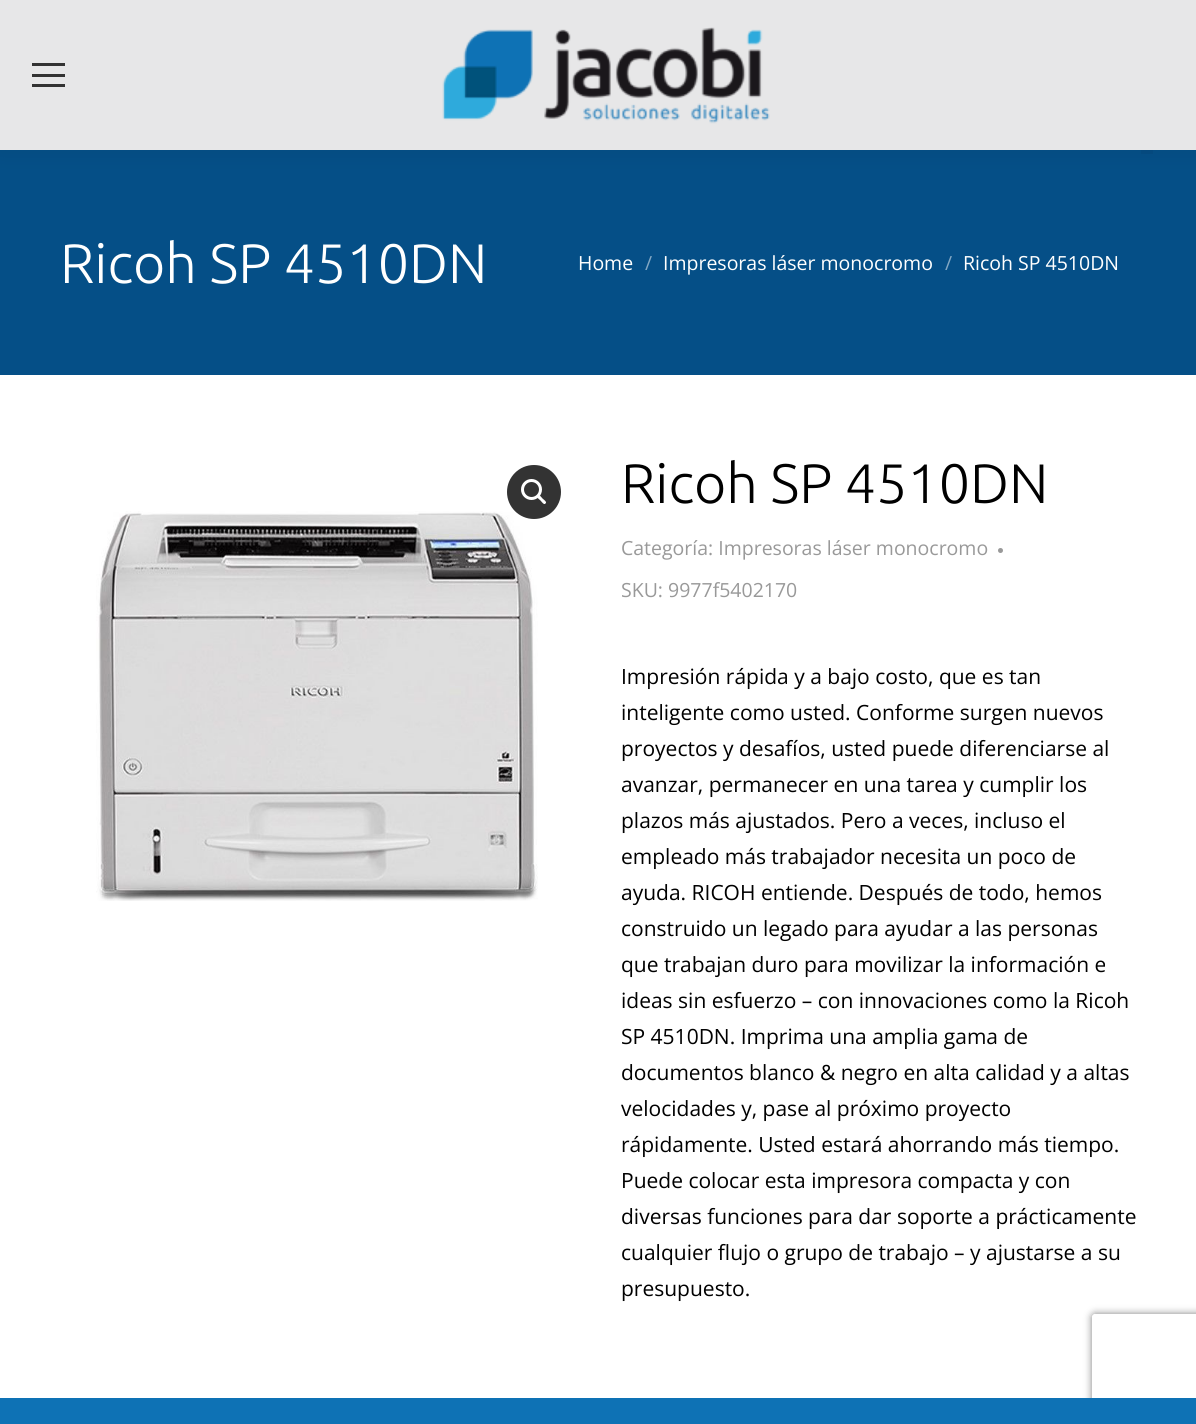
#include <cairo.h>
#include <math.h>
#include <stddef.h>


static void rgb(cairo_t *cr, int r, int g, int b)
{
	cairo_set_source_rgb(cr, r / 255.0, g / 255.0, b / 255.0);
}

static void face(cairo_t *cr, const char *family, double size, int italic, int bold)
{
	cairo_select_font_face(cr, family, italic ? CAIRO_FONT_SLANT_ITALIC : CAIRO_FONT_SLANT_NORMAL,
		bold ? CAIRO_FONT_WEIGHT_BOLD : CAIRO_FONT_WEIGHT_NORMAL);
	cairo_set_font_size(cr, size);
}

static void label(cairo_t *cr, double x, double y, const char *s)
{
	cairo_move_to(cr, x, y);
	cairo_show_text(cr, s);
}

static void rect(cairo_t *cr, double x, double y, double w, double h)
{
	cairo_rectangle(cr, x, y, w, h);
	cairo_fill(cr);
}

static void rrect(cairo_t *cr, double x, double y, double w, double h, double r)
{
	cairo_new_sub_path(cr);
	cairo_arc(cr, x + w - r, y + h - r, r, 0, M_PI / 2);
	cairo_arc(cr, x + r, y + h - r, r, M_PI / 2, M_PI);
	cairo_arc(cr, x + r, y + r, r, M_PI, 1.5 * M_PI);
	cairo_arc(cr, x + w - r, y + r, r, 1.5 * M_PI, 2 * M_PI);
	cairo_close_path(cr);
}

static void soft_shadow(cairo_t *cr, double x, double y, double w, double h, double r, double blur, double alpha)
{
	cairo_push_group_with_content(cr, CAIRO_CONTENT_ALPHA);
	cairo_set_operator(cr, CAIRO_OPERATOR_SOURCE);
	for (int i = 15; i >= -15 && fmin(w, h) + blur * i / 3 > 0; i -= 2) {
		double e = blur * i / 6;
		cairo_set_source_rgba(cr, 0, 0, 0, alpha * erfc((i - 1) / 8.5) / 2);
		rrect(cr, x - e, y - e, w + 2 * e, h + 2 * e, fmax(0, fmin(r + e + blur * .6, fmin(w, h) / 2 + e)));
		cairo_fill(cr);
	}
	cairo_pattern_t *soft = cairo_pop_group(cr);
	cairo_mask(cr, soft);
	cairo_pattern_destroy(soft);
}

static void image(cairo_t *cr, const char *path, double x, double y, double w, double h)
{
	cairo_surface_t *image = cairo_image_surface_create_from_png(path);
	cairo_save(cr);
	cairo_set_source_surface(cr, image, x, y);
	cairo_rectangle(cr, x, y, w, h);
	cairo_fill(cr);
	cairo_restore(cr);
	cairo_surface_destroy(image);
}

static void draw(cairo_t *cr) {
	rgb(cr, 255, 255, 255);
	cairo_paint(cr);
	rgb(cr, 5, 79, 135);
	rect(cr, 0, 150, 1196, 225);
	rgb(cr, 5, 75, 130);
	rect(cr, 1141, 150, 12, 4);
	rgb(cr, 0, 0, 0);
	soft_shadow(cr, -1, -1, 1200, 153, 0, 11, 0.07);
	rgb(cr, 231, 231, 232);
	rect(cr, 0, 0, 1196, 150);
	rgb(cr, 51, 51, 51);
	rect(cr, 32, 63, 33, 3);
	rect(cr, 32, 74, 33, 3);
	rect(cr, 32, 84, 33, 3);
	image(cr, "image0.png", 442, 27, 328, 97);
	face(cr, "Ubuntu Light", 55.5, 0, 0);
	rgb(cr, 255, 255, 255);
	label(cr, 60, 283, "Ricoh SP 4510DN");
	face(cr, "Open Sans", 19.5, 0, 0);
	label(cr, 578, 270, "Home");
	rgb(cr, 130, 167, 195);
	label(cr, 645, 270, "/");
	rgb(cr, 255, 255, 255);
	label(cr, 663, 270, "Impresoras láser monocromo");
	rgb(cr, 130, 167, 195);
	label(cr, 945, 270, "/");
	rgb(cr, 255, 255, 255);
	label(cr, 963, 270, "Ricoh SP 4510DN");
	image(cr, "image1.png", 96, 511, 442, 390);
	rgb(cr, 51, 51, 51);
	cairo_arc(cr, 534, 492, 27, 0, 2 * M_PI);
	cairo_fill(cr);
	cairo_arc(cr, 531.5, 489.5, 9, 0, 2 * M_PI);
	rgb(cr, 255, 255, 255);
	cairo_set_line_width(cr, 3);
	cairo_stroke(cr);
	cairo_new_path(cr);
	cairo_move_to(cr, 537.5, 495.5);
	cairo_curve_to(cr, 539, 493.5, 541.5, 497.5, 542.5, 498.5);
	cairo_curve_to(cr, 543.5, 499.5, 547.5, 502, 545.5, 503.5);
	cairo_curve_to(cr, 544, 505.5, 541.5, 501.5, 540.5, 500.5);
	cairo_curve_to(cr, 539.5, 499.5, 535.5, 497, 537.5, 495.5);
	cairo_close_path(cr);
	cairo_fill(cr);
	face(cr, "Ubuntu Light", 55.5, 0, 0);
	rgb(cr, 0, 0, 0);
	label(cr, 621, 503, "Ricoh SP 4510DN");
	face(cr, "Open Sans", 19.5, 0, 0);
	rgb(cr, 153, 153, 153);
	label(cr, 621, 555, "Categoría: Impresoras láser monocromo");
	cairo_new_path(cr);
	cairo_arc(cr, 1000.5, 550.5, 2.5, 0, 2 * M_PI);
	cairo_fill(cr);
	label(cr, 621, 597, "SKU: 9977f5402170");
	face(cr, "Open Sans", 21, 0, 0);
	rgb(cr, 0, 0, 0);
	label(cr, 621, 684, "Impresión rápida y a bajo costo, que es tan");
	label(cr, 621, 720, "inteligente como usted. Conforme surgen nuevos");
	label(cr, 621, 756, "proyectos y desafíos, usted puede diferenciarse al");
	label(cr, 621, 792, "avanzar, permanecer en una tarea y cumplir los");
	label(cr, 621, 828, "plazos más ajustados. Pero a veces, incluso el");
	label(cr, 621, 864, "empleado más trabajador necesita un poco de");
	label(cr, 621, 900, "ayuda. RICOH entiende. Después de todo, hemos");
	label(cr, 621, 936, "construido un legado para ayudar a las personas");
	label(cr, 621, 972, "que trabajan duro para movilizar la información e");
	label(cr, 621, 1008, "ideas sin esfuerzo – con innovaciones como la Ricoh");
	label(cr, 621, 1044, "SP 4510DN. Imprima una amplia gama de");
	label(cr, 621, 1080, "documentos blanco & negro en alta calidad y a altas");
	label(cr, 621, 1116, "velocidades y, pase al próximo proyecto");
	label(cr, 621, 1152, "rápidamente. Usted estará ahorrando más tiempo.");
	label(cr, 621, 1188, "Puede colocar esta impresora compacta y con");
	label(cr, 621, 1224, "diversas funciones para dar soporte a prácticamente");
	label(cr, 621, 1260, "cualquier flujo o grupo de trabajo – y ajustarse a su");
	label(cr, 621, 1296, "presupuesto.");
	cairo_save(cr);
	cairo_set_fill_rule(cr, CAIRO_FILL_RULE_EVEN_ODD);
	cairo_new_path(cr);
	cairo_move_to(cr, 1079, 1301);
	cairo_line_to(cr, 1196, 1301);
	cairo_line_to(cr, 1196, 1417);
	cairo_line_to(cr, 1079, 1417);
	cairo_close_path(cr);
	cairo_move_to(cr, 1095, 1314);
	cairo_line_to(cr, 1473, 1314);
	cairo_curve_to(cr, 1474.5, 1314, 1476, 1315.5, 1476, 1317);
	cairo_line_to(cr, 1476, 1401);
	cairo_curve_to(cr, 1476, 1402.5, 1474.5, 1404, 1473, 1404);
	cairo_line_to(cr, 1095, 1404);
	cairo_curve_to(cr, 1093.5, 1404, 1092, 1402.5, 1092, 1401);
	cairo_line_to(cr, 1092, 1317);
	cairo_curve_to(cr, 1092, 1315.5, 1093.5, 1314, 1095, 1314);
	cairo_close_path(cr);
	cairo_clip(cr);
	rgb(cr, 128, 128, 128);
	soft_shadow(cr, 1092, 1314, 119, 90, 3, 4, 1);
	cairo_restore(cr);
	rgb(cr, 14, 114, 181);
	rect(cr, 0, 1398, 1196, 26);
}

int main(void) {
	cairo_surface_t *surface = cairo_image_surface_create(CAIRO_FORMAT_RGB24, 1196, 1424);
	cairo_t *cr = cairo_create(surface);
	cairo_font_options_t *options = cairo_font_options_create();
	cairo_font_options_set_hint_metrics(options, CAIRO_HINT_METRICS_OFF);
	cairo_font_options_set_hint_style(options, CAIRO_HINT_STYLE_NONE);
	cairo_set_font_options(cr, options);
	cairo_set_miter_limit(cr, 4);
	draw(cr);
	cairo_surface_write_to_png(surface, "render.png");
	cairo_font_options_destroy(options);
	cairo_destroy(cr);
	cairo_surface_destroy(surface);
	return 0;
}
